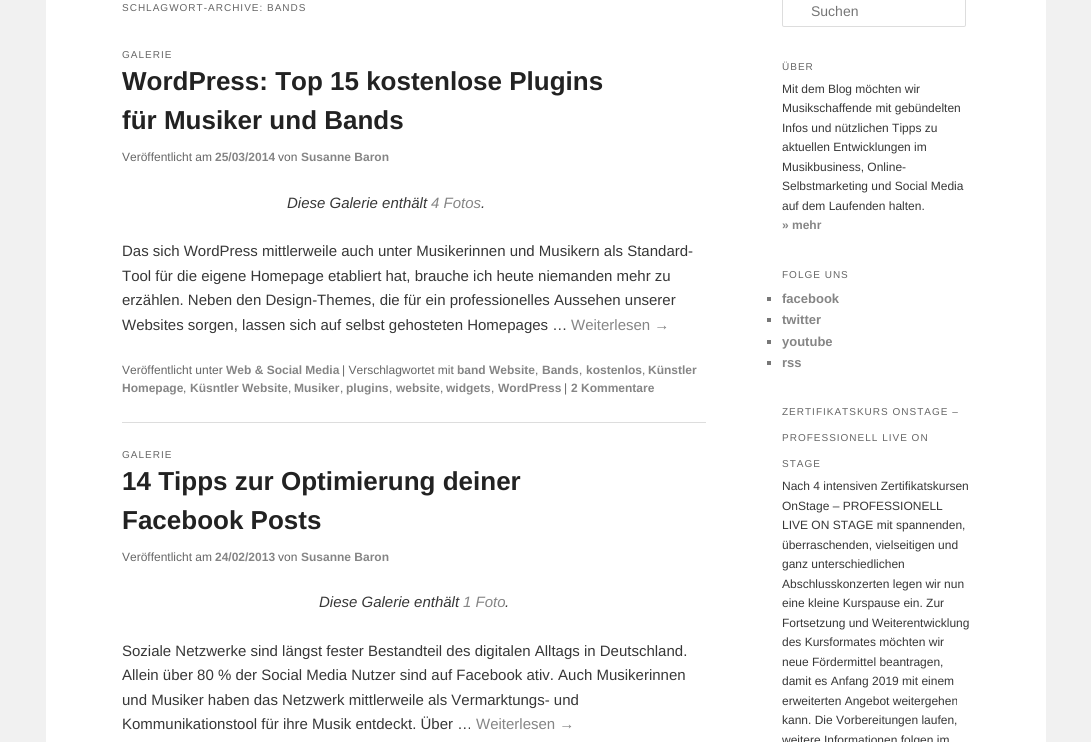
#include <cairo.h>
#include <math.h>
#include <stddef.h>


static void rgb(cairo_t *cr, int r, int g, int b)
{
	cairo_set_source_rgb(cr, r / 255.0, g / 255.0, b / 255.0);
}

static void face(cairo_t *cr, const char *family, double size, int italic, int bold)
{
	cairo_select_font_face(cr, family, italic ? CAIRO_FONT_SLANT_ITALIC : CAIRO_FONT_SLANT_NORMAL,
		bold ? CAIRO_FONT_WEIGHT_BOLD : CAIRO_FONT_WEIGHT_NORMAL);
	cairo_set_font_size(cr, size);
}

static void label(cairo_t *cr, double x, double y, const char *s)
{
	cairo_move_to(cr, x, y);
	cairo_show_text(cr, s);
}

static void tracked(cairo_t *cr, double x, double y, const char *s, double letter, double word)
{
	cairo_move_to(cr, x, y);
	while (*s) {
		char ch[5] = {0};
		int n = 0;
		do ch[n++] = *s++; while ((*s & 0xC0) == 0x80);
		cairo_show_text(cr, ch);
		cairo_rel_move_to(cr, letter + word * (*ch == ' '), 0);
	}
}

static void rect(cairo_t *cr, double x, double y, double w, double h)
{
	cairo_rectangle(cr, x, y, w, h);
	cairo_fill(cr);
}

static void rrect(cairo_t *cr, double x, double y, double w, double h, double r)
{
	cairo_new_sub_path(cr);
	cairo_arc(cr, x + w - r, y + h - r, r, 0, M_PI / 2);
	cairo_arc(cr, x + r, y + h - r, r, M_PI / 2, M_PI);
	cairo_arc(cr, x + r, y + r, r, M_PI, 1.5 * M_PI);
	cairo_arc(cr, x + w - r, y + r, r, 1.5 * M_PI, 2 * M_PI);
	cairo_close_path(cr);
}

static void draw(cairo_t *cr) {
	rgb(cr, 241, 241, 241);
	cairo_paint(cr);
	rgb(cr, 255, 255, 255);
	rect(cr, 46, 0, 1000, 742);
	face(cr, "Liberation Sans", 10, 0, 0);
	rgb(cr, 102, 102, 102);
	tracked(cr, 122, 11, "SCHLAGWORT-ARCHIVE: BANDS", 1, 0);
	rgb(cr, 221, 221, 221);
	rect(cr, 122, 422, 584, 1);
	rgb(cr, 102, 102, 102);
	tracked(cr, 122, 58, "GALERIE", 1, 0);
	face(cr, "Liberation Sans", 26, 0, 1);
	rgb(cr, 34, 34, 34);
	label(cr, 122, 90, "WordPress: Top 15 kostenlose Plugins");
	label(cr, 122, 129, "für Musiker und Bands");
	face(cr, "Liberation Sans", 12, 0, 0);
	rgb(cr, 102, 102, 102);
	label(cr, 122, 161, "Veröffentlicht am");
	face(cr, "Liberation Sans", 12, 0, 1);
	rgb(cr, 133, 133, 133);
	label(cr, 215, 161, "25/03/2014");
	face(cr, "Liberation Sans", 12, 0, 0);
	rgb(cr, 102, 102, 102);
	label(cr, 278, 161, "von");
	face(cr, "Liberation Sans", 12, 0, 1);
	rgb(cr, 133, 133, 133);
	label(cr, 301, 161, "Susanne Baron");
	face(cr, "Liberation Sans", 15, 1, 0);
	rgb(cr, 55, 55, 55);
	label(cr, 287, 208, "Diese Galerie enthält");
	rgb(cr, 133, 133, 133);
	label(cr, 431, 208, "4 Fotos");
	rgb(cr, 55, 55, 55);
	label(cr, 481, 208, ".");
	face(cr, "Liberation Sans", 15, 0, 0);
	label(cr, 122, 256, "Das sich WordPress mittlerweile auch unter Musikerinnen und Musikern als Standard-");
	label(cr, 122, 281, "Tool für die eigene Homepage etabliert hat, brauche ich heute niemanden mehr zu");
	label(cr, 122, 305, "erzählen. Neben den Design-Themes, die für ein professionelles Aussehen unserer");
	label(cr, 122, 330, "Websites sorgen, lassen sich auf selbst gehosteten Homepages …");
	rgb(cr, 133, 133, 133);
	label(cr, 571, 330, "Weiterlesen →");
	face(cr, "Liberation Sans", 12, 0, 0);
	rgb(cr, 102, 102, 102);
	label(cr, 122, 374, "Veröffentlicht unter");
	face(cr, "Liberation Sans", 12, 0, 1);
	rgb(cr, 133, 133, 133);
	label(cr, 226, 374, "Web & Social Media");
	face(cr, "Liberation Sans", 12, 0, 0);
	rgb(cr, 102, 102, 102);
	label(cr, 342, 374, "| Verschlagwortet mit");
	face(cr, "Liberation Sans", 12, 0, 1);
	rgb(cr, 133, 133, 133);
	label(cr, 457, 374, "band Website");
	face(cr, "Liberation Sans", 12, 0, 0);
	rgb(cr, 102, 102, 102);
	label(cr, 535, 374, ",");
	face(cr, "Liberation Sans", 12, 0, 1);
	rgb(cr, 133, 133, 133);
	label(cr, 542, 374, "Bands");
	face(cr, "Liberation Sans", 12, 0, 0);
	rgb(cr, 102, 102, 102);
	label(cr, 579, 374, ",");
	face(cr, "Liberation Sans", 12, 0, 1);
	rgb(cr, 133, 133, 133);
	label(cr, 586, 374, "kostenlos");
	face(cr, "Liberation Sans", 12, 0, 0);
	rgb(cr, 102, 102, 102);
	label(cr, 642, 374, ",");
	face(cr, "Liberation Sans", 12, 0, 1);
	rgb(cr, 133, 133, 133);
	label(cr, 648, 374, "Künstler");
	label(cr, 122, 392, "Homepage");
	face(cr, "Liberation Sans", 12, 0, 0);
	rgb(cr, 102, 102, 102);
	label(cr, 183, 392, ",");
	face(cr, "Liberation Sans", 12, 0, 1);
	rgb(cr, 133, 133, 133);
	label(cr, 190, 392, "Küsntler Website");
	face(cr, "Liberation Sans", 12, 0, 0);
	rgb(cr, 102, 102, 102);
	label(cr, 288, 392, ",");
	face(cr, "Liberation Sans", 12, 0, 1);
	rgb(cr, 133, 133, 133);
	label(cr, 294, 392, "Musiker");
	face(cr, "Liberation Sans", 12, 0, 0);
	rgb(cr, 102, 102, 102);
	label(cr, 340, 392, ",");
	face(cr, "Liberation Sans", 12, 0, 1);
	rgb(cr, 133, 133, 133);
	label(cr, 346, 392, "plugins");
	face(cr, "Liberation Sans", 12, 0, 0);
	rgb(cr, 102, 102, 102);
	label(cr, 389, 392, ",");
	face(cr, "Liberation Sans", 12, 0, 1);
	rgb(cr, 133, 133, 133);
	label(cr, 396, 392, "website");
	face(cr, "Liberation Sans", 12, 0, 0);
	rgb(cr, 102, 102, 102);
	label(cr, 440, 392, ",");
	face(cr, "Liberation Sans", 12, 0, 1);
	rgb(cr, 133, 133, 133);
	label(cr, 446, 392, "widgets");
	face(cr, "Liberation Sans", 12, 0, 0);
	rgb(cr, 102, 102, 102);
	label(cr, 491, 392, ",");
	face(cr, "Liberation Sans", 12, 0, 1);
	rgb(cr, 133, 133, 133);
	label(cr, 498, 392, "WordPress");
	face(cr, "Liberation Sans", 12, 0, 0);
	rgb(cr, 102, 102, 102);
	label(cr, 564, 392, "|");
	face(cr, "Liberation Sans", 12, 0, 1);
	rgb(cr, 133, 133, 133);
	label(cr, 571, 392, "2 Kommentare");
	face(cr, "Liberation Sans", 10, 0, 0);
	rgb(cr, 102, 102, 102);
	tracked(cr, 122, 458, "GALERIE", 1, 0);
	face(cr, "Liberation Sans", 26, 0, 1);
	rgb(cr, 34, 34, 34);
	label(cr, 122, 490, "14 Tipps zur Optimierung deiner");
	label(cr, 122, 529, "Facebook Posts");
	face(cr, "Liberation Sans", 12, 0, 0);
	rgb(cr, 102, 102, 102);
	label(cr, 122, 561, "Veröffentlicht am");
	face(cr, "Liberation Sans", 12, 0, 1);
	rgb(cr, 133, 133, 133);
	label(cr, 215, 561, "24/02/2013");
	face(cr, "Liberation Sans", 12, 0, 0);
	rgb(cr, 102, 102, 102);
	label(cr, 278, 561, "von");
	face(cr, "Liberation Sans", 12, 0, 1);
	rgb(cr, 133, 133, 133);
	label(cr, 301, 561, "Susanne Baron");
	face(cr, "Liberation Sans", 15, 1, 0);
	rgb(cr, 55, 55, 55);
	label(cr, 319, 607, "Diese Galerie enthält");
	rgb(cr, 133, 133, 133);
	label(cr, 463, 607, "1 Foto");
	rgb(cr, 55, 55, 55);
	label(cr, 505, 607, ".");
	face(cr, "Liberation Sans", 15, 0, 0);
	label(cr, 122, 656, "Soziale Netzwerke sind längst fester Bestandteil des digitalen Alltags in Deutschland.");
	label(cr, 122, 680, "Allein über 80 % der Social Media Nutzer sind auf Facebook ativ. Auch Musikerinnen");
	label(cr, 122, 705, "und Musiker haben das Netzwerk mittlerweile als Vermarktungs- und");
	label(cr, 122, 729, "Kommunikationstool für ihre Musik entdeckt. Über …");
	rgb(cr, 133, 133, 133);
	label(cr, 476, 729, "Weiterlesen →");
	rrect(cr, 782.5, -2.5, 183, 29, 1.5);
	rgb(cr, 221, 221, 221);
	cairo_set_line_width(cr, 1);
	cairo_stroke(cr);
	face(cr, "Liberation Sans", 14, 0, 0);
	rgb(cr, 117, 117, 117);
	label(cr, 811, 16, "Suchen");
	face(cr, "Liberation Sans", 10, 0, 0);
	rgb(cr, 102, 102, 102);
	tracked(cr, 782, 70, "ÜBER", 1, 0);
	face(cr, "Liberation Sans", 12, 0, 0);
	rgb(cr, 55, 55, 55);
	label(cr, 782, 93, "Mit dem Blog möchten wir");
	label(cr, 782, 112, "Musikschaffende mit gebündelten");
	label(cr, 782, 132, "Infos und nützlichen Tipps zu");
	label(cr, 782, 151, "aktuellen Entwicklungen im");
	label(cr, 782, 171, "Musikbusiness, Online-");
	label(cr, 782, 190, "Selbstmarketing und Social Media");
	label(cr, 782, 210, "auf dem Laufenden halten.");
	face(cr, "Liberation Sans", 12, 0, 1);
	rgb(cr, 133, 133, 133);
	label(cr, 782, 229, "» mehr");
	face(cr, "Liberation Sans", 10, 0, 0);
	rgb(cr, 102, 102, 102);
	tracked(cr, 782, 278, "FOLGE UNS", 1, 0);
	rgb(cr, 119, 119, 119);
	rect(cr, 767, 297, 4, 4);
	face(cr, "Liberation Sans", 13, 0, 1);
	rgb(cr, 133, 133, 133);
	label(cr, 782, 303, "facebook");
	rgb(cr, 119, 119, 119);
	rect(cr, 767, 318, 4, 4);
	rgb(cr, 133, 133, 133);
	label(cr, 782, 324, "twitter");
	rgb(cr, 119, 119, 119);
	rect(cr, 767, 340, 4, 4);
	rgb(cr, 133, 133, 133);
	label(cr, 782, 346, "youtube");
	rgb(cr, 119, 119, 119);
	rect(cr, 767, 361, 4, 4);
	rgb(cr, 133, 133, 133);
	label(cr, 782, 367, "rss");
	face(cr, "Liberation Sans", 10, 0, 0);
	rgb(cr, 102, 102, 102);
	tracked(cr, 782, 415, "ZERTIFIKATSKURS ONSTAGE –", 1, 0);
	tracked(cr, 782, 441, "PROFESSIONELL LIVE ON", 1, 0);
	tracked(cr, 782, 467, "STAGE", 1, 0);
	face(cr, "Liberation Sans", 12, 0, 0);
	rgb(cr, 55, 55, 55);
	label(cr, 782, 490, "Nach 4 intensiven Zertifikatskursen");
	label(cr, 782, 510, "OnStage – PROFESSIONELL");
	label(cr, 782, 529, "LIVE ON STAGE mit spannenden,");
	label(cr, 782, 549, "überraschenden, vielseitigen und");
	label(cr, 782, 568, "ganz unterschiedlichen");
	label(cr, 782, 588, "Abschlusskonzerten legen wir nun");
	label(cr, 782, 607, "eine kleine Kurspause ein. Zur");
	label(cr, 782, 627, "Fortsetzung und Weiterentwicklung");
	label(cr, 782, 646, "des Kursformates möchten wir");
	label(cr, 782, 666, "neue Fördermittel beantragen,");
	label(cr, 782, 685, "damit es Anfang 2019 mit einem");
	label(cr, 782, 705, "erweiterten Angebot weitergehen");
	label(cr, 782, 724, "kann. Die Vorbereitungen laufen,");
	label(cr, 782, 744, "weitere Informationen folgen im");
}

int main(void) {
	cairo_surface_t *surface = cairo_image_surface_create(CAIRO_FORMAT_RGB24, 1091, 742);
	cairo_t *cr = cairo_create(surface);
	cairo_font_options_t *options = cairo_font_options_create();
	cairo_font_options_set_hint_metrics(options, CAIRO_HINT_METRICS_OFF);
	cairo_font_options_set_hint_style(options, CAIRO_HINT_STYLE_NONE);
	cairo_set_font_options(cr, options);
	cairo_set_miter_limit(cr, 4);
	draw(cr);
	cairo_surface_write_to_png(surface, "render.png");
	cairo_font_options_destroy(options);
	cairo_destroy(cr);
	cairo_surface_destroy(surface);
	return 0;
}
